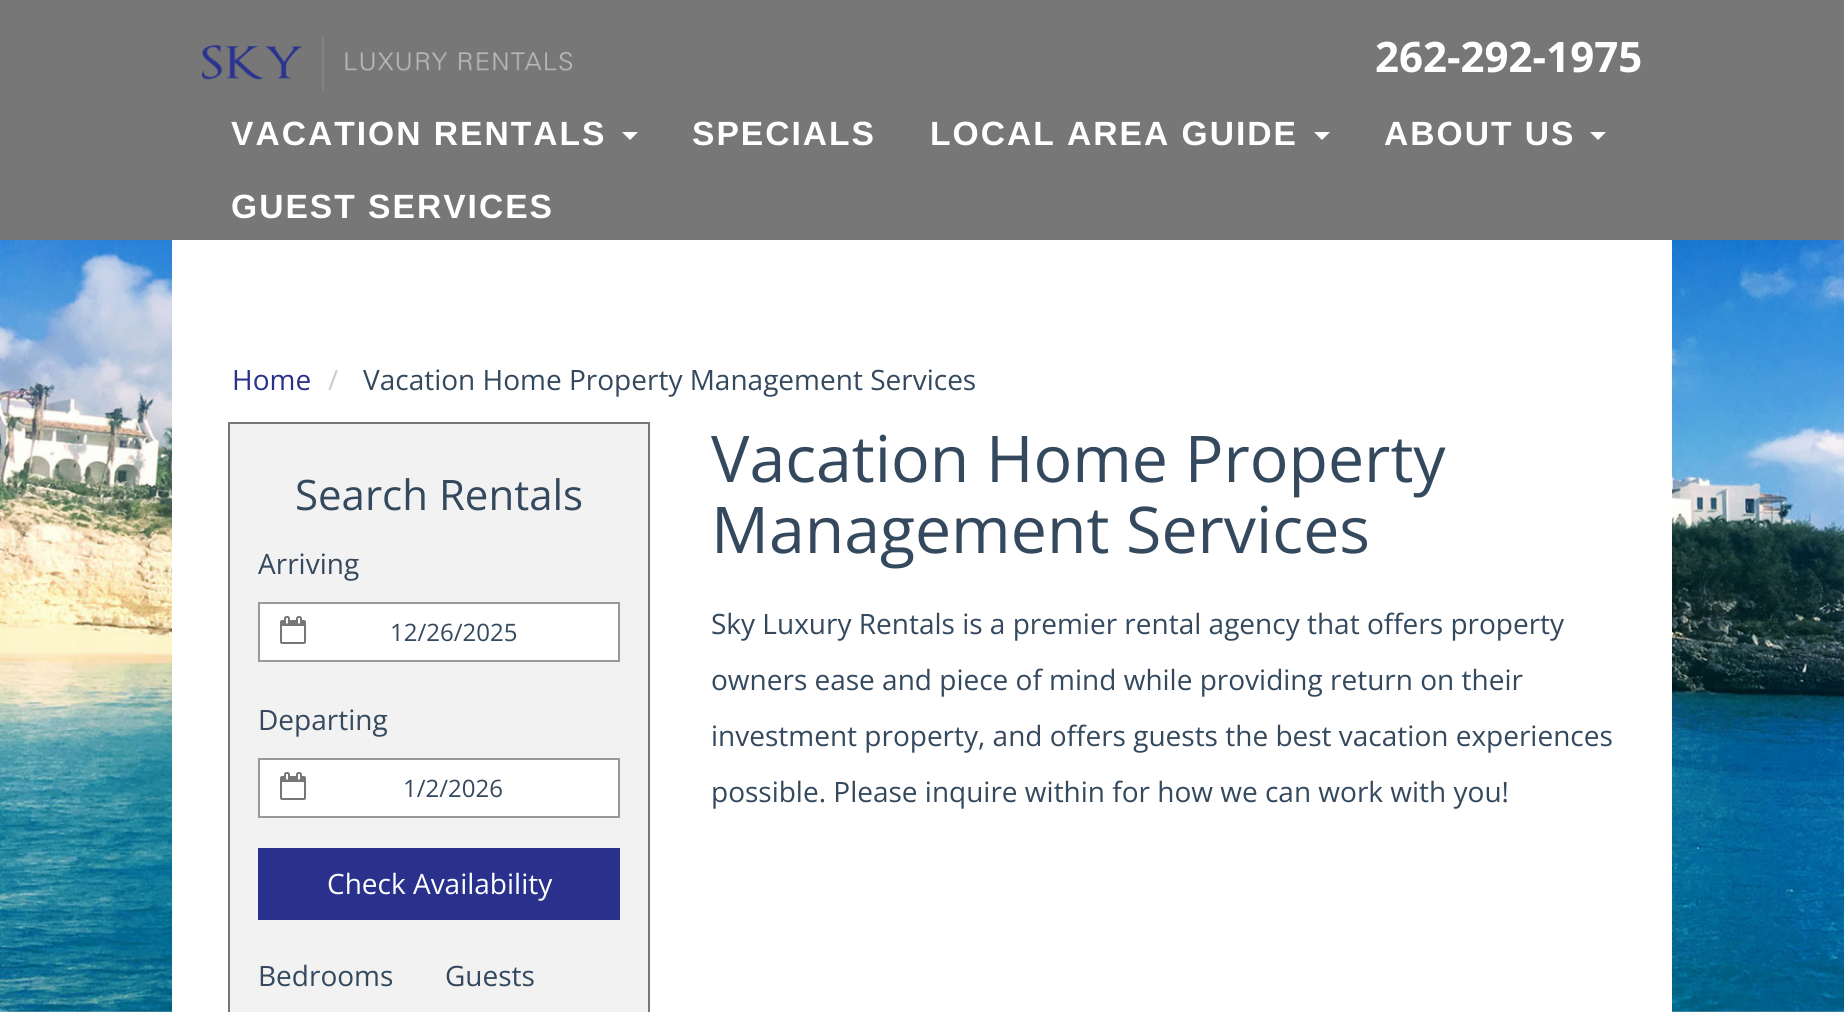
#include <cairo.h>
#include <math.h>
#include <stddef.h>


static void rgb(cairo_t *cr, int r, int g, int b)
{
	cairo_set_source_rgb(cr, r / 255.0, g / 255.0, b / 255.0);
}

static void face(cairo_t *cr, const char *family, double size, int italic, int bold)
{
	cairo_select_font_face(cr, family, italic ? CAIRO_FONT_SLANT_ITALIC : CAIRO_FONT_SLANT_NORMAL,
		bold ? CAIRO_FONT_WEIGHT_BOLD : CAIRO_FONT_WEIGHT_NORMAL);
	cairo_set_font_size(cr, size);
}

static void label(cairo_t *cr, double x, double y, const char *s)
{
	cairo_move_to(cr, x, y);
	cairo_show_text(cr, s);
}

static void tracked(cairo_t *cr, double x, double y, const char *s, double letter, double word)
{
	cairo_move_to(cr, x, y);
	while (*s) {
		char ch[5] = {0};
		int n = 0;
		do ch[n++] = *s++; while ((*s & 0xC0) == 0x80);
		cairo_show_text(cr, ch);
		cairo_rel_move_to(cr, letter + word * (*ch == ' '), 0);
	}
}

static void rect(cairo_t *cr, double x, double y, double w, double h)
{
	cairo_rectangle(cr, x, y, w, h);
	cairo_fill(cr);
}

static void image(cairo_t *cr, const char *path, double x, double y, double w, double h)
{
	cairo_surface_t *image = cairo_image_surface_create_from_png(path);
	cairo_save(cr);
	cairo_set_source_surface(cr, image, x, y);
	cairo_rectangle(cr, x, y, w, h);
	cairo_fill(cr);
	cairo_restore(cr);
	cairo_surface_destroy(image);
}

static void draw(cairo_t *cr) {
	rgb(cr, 255, 255, 255);
	cairo_paint(cr);
	image(cr, "image0.png", 0, 240, 1844, 772);
	rgb(cr, 119, 119, 119);
	rect(cr, 0, 0, 1844, 240);
	image(cr, "image1.png", 202, 36, 370, 54);
	face(cr, "Open Sans", 42, 0, 1);
	rgb(cr, 255, 255, 255);
	label(cr, 1375, 72, "262-292-1975");
	face(cr, "Liberation Sans", 33.6, 0, 1);
	tracked(cr, 231, 145, "VACATION RENTALS", 2, 0);
	cairo_new_path(cr);
	cairo_move_to(cr, 622, 132);
	cairo_line_to(cr, 638, 132);
	cairo_line_to(cr, 630, 140);
	cairo_close_path(cr);
	cairo_fill(cr);
	tracked(cr, 692, 145, "SPECIALS", 2, 0);
	tracked(cr, 930, 145, "LOCAL AREA GUIDE", 2, 0);
	cairo_new_path(cr);
	cairo_move_to(cr, 1314, 132);
	cairo_line_to(cr, 1330, 132);
	cairo_line_to(cr, 1322, 140);
	cairo_close_path(cr);
	cairo_fill(cr);
	tracked(cr, 1384, 145, "ABOUT US", 2, 0);
	cairo_new_path(cr);
	cairo_move_to(cr, 1590, 132);
	cairo_line_to(cr, 1606, 132);
	cairo_line_to(cr, 1598, 140);
	cairo_close_path(cr);
	cairo_fill(cr);
	tracked(cr, 231, 218, "GUEST SERVICES", 2, 0);
	rect(cr, 172, 240, 1500, 772);
	face(cr, "Open Sans", 28, 0, 0);
	rgb(cr, 42, 49, 140);
	label(cr, 232, 390, "Home");
	rgb(cr, 204, 204, 204);
	label(cr, 328, 390, "/");
	rgb(cr, 52, 73, 94);
	label(cr, 363, 390, "Vacation Home Property Management Services");
	rgb(cr, 242, 242, 242);
	cairo_rectangle(cr, 229, 423, 420, 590);
	cairo_fill_preserve(cr);
	rgb(cr, 119, 119, 119);
	cairo_stroke(cr);
	face(cr, "Open Sans", 42, 0, 0);
	rgb(cr, 52, 73, 94);
	label(cr, 295, 510, "Search Rentals");
	face(cr, "Open Sans", 28, 0, 0);
	label(cr, 258, 574, "Arriving");
	rgb(cr, 255, 255, 255);
	cairo_rectangle(cr, 259, 603, 360, 58);
	cairo_fill_preserve(cr);
	rgb(cr, 153, 153, 153);
	cairo_stroke(cr);
	image(cr, "image2.png", 280, 616, 26, 28);
	face(cr, "Open Sans", 24, 0, 0);
	rgb(cr, 52, 73, 94);
	label(cr, 390, 641, "12/26/2025");
	face(cr, "Open Sans", 28, 0, 0);
	label(cr, 258, 730, "Departing");
	rgb(cr, 255, 255, 255);
	cairo_rectangle(cr, 259, 759, 360, 58);
	cairo_fill_preserve(cr);
	rgb(cr, 153, 153, 153);
	cairo_stroke(cr);
	image(cr, "image2.png", 280, 772, 26, 28);
	face(cr, "Open Sans", 24, 0, 0);
	rgb(cr, 52, 73, 94);
	label(cr, 403, 797, "1/2/2026");
	rgb(cr, 42, 49, 140);
	rect(cr, 258, 848, 362, 72);
	face(cr, "Open Sans", 28, 0, 0);
	rgb(cr, 255, 255, 255);
	label(cr, 327, 894, "Check Availability");
	rgb(cr, 52, 73, 94);
	label(cr, 258, 986, "Bedrooms");
	label(cr, 445, 986, "Guests");
	face(cr, "Open Sans", 64.4, 0, 0);
	label(cr, 711, 482, "Vacation Home Property");
	label(cr, 711, 553, "Management Services");
	face(cr, "Open Sans", 28, 0, 0);
	label(cr, 711, 634, "Sky Luxury Rentals is a premier rental agency that offers property");
	label(cr, 711, 690, "owners ease and piece of mind while providing return on their");
	label(cr, 711, 746, "investment property, and offers guests the best vacation experiences");
	label(cr, 711, 802, "possible. Please inquire within for how we can work with you!");
}

int main(void) {
	cairo_surface_t *surface = cairo_image_surface_create(CAIRO_FORMAT_RGB24, 1844, 1012);
	cairo_t *cr = cairo_create(surface);
	cairo_font_options_t *options = cairo_font_options_create();
	cairo_font_options_set_hint_metrics(options, CAIRO_HINT_METRICS_OFF);
	cairo_font_options_set_hint_style(options, CAIRO_HINT_STYLE_NONE);
	cairo_set_font_options(cr, options);
	cairo_set_miter_limit(cr, 4);
	draw(cr);
	cairo_surface_write_to_png(surface, "render.png");
	cairo_font_options_destroy(options);
	cairo_destroy(cr);
	cairo_surface_destroy(surface);
	return 0;
}
